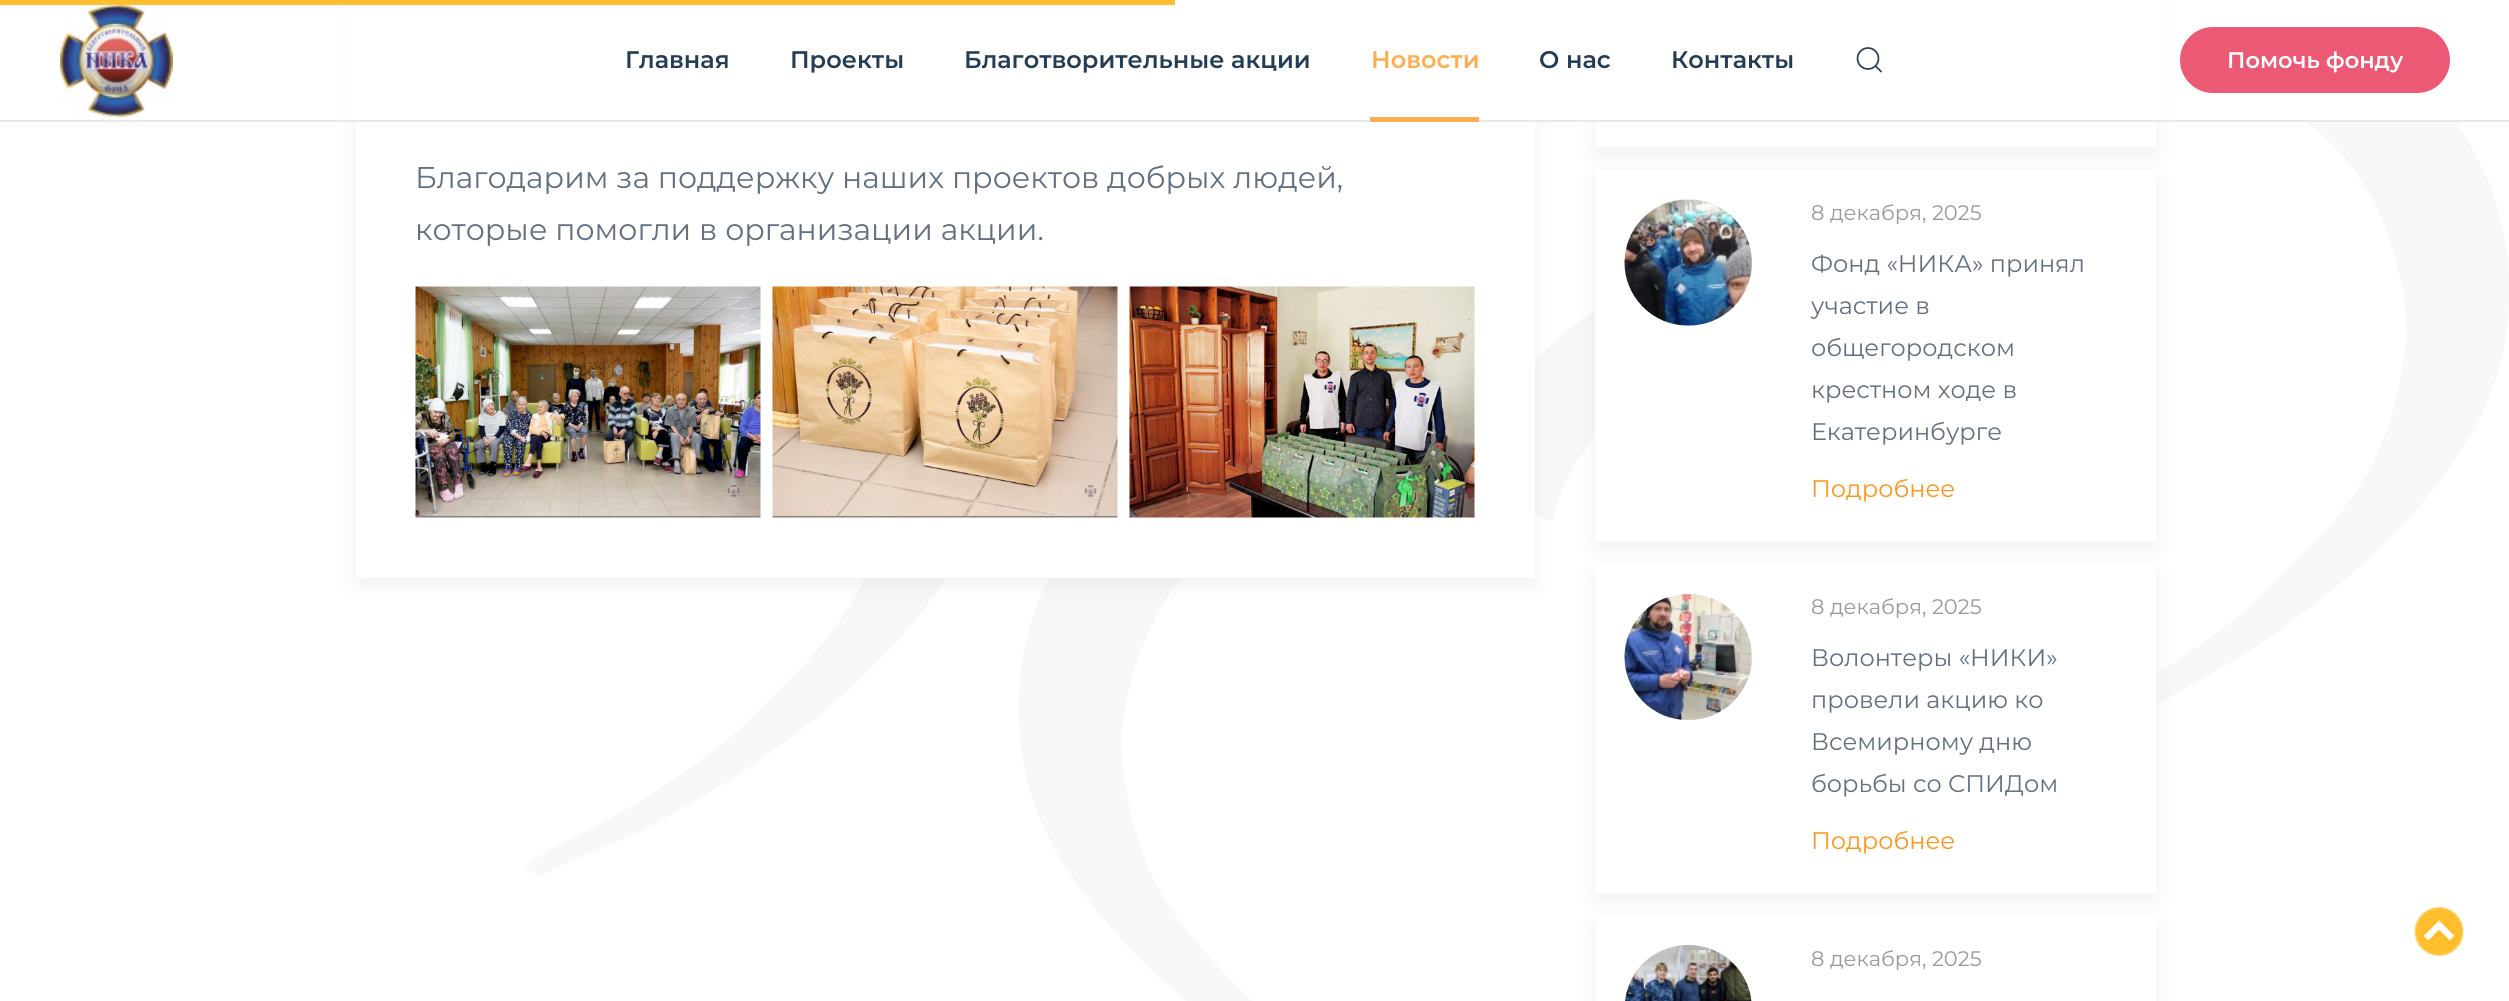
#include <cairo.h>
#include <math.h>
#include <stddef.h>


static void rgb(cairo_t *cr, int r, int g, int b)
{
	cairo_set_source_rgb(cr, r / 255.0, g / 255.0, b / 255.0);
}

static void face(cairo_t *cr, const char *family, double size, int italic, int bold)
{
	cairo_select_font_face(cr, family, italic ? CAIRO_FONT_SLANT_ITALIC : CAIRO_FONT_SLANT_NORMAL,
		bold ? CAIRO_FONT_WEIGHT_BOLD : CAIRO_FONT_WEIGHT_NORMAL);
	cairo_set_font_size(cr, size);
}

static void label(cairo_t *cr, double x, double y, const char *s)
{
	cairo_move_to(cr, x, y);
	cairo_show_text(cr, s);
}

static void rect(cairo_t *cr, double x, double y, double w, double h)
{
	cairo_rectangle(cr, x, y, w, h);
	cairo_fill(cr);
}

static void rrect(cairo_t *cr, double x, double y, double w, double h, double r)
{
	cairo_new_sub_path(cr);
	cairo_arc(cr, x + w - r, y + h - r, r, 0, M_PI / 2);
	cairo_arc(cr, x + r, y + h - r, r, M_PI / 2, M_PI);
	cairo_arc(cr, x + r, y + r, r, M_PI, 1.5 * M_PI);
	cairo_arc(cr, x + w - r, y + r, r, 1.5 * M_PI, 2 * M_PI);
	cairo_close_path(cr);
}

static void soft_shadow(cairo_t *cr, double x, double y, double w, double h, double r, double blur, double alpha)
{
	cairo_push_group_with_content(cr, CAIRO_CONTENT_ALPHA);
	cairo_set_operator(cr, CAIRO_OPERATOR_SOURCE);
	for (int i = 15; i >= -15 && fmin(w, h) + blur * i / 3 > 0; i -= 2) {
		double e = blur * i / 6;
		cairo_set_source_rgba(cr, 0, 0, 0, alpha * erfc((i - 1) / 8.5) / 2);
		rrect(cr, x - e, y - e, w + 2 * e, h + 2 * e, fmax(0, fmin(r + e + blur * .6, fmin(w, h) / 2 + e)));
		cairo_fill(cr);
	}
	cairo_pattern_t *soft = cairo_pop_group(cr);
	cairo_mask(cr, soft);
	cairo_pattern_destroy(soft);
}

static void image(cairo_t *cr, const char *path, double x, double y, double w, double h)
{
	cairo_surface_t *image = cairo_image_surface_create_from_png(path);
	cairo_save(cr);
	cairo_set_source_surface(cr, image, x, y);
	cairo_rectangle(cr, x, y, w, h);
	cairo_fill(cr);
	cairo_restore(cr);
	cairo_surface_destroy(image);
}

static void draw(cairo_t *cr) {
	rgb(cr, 255, 255, 255);
	cairo_paint(cr);
	image(cr, "image1.png", 525, 122, 1984, 879);
	rgb(cr, 0, 0, 0);
	soft_shadow(cr, 356, -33, 1179, 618, 0, 11, 0.06);
	soft_shadow(cr, 1595, -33, 561, 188, 0, 11, 0.06);
	rgb(cr, 255, 255, 255);
	rect(cr, 345, 0, 1822, 120);
	rgb(cr, 255, 190, 46);
	rect(cr, 0, 0, 1175, 5);
	rgb(cr, 232, 232, 232);
	rect(cr, 0, 120, 2509, 2);
	image(cr, "image0.png", 60, 5, 113, 112);
	face(cr, "Montserrat SemiBold", 24, 0, 0);
	rgb(cr, 36, 61, 87);
	label(cr, 625, 68, "Главная");
	label(cr, 790, 68, "Проекты");
	label(cr, 964, 68, "Благотворительные акции");
	rgb(cr, 255, 173, 79);
	label(cr, 1371, 68, "Новости");
	rect(cr, 1370, 117, 109, 5);
	rgb(cr, 36, 61, 87);
	label(cr, 1539, 68, "О нас");
	label(cr, 1671, 68, "Контакты");
	cairo_new_path(cr);
	cairo_arc(cr, 1868, 58.5, 10.5, 0, 2 * M_PI);
	cairo_set_line_width(cr, 1.7);
	cairo_stroke(cr);
	cairo_new_path(cr);
	cairo_move_to(cr, 1875.5, 66);
	cairo_line_to(cr, 1881.5, 72);
	cairo_close_path(cr);
	cairo_stroke(cr);
	rgb(cr, 235, 89, 116);
	rrect(cr, 2180, 27, 270, 66, 33);
	cairo_fill(cr);
	face(cr, "Montserrat SemiBold", 22.5, 0, 0);
	rgb(cr, 255, 255, 255);
	label(cr, 2227, 68, "Помочь фонду");
	rect(cr, 356, 122, 1179, 456);
	face(cr, "Montserrat", 30, 0, 0);
	rgb(cr, 98, 112, 127);
	label(cr, 415, 188, "Благодарим за поддержку наших проектов добрых людей,");
	label(cr, 415, 240, "которые помогли в организации акции.");
	image(cr, "image2.png", 415, 286, 346, 232);
	image(cr, "image3.png", 772, 286, 346, 232);
	image(cr, "image4.png", 1129, 286, 346, 232);
	rgb(cr, 255, 255, 255);
	rect(cr, 1595, 122, 561, 25);
	rgb(cr, 0, 0, 0);
	soft_shadow(cr, 1595, 177, 561, 372, 0, 11, 0.06);
	rgb(cr, 255, 255, 255);
	rect(cr, 1595, 170, 561, 372);
	image(cr, "image5.png", 1624, 199, 128, 127);
	face(cr, "Montserrat", 21, 0, 0);
	rgb(cr, 153, 153, 153);
	label(cr, 1811, 220, "8 декабря, 2025");
	face(cr, "Montserrat", 24, 0, 0);
	rgb(cr, 98, 112, 127);
	label(cr, 1811, 272, "Фонд «НИКА» принял");
	label(cr, 1811, 314, "участие в");
	label(cr, 1811, 356, "общегородском");
	label(cr, 1811, 398, "крестном ходе в");
	label(cr, 1811, 440, "Екатеринбурге");
	rgb(cr, 254, 150, 30);
	label(cr, 1811, 497, "Подробнее");
	rgb(cr, 0, 0, 0);
	soft_shadow(cr, 1595, 572, 561, 328, 0, 11, 0.06);
	rgb(cr, 255, 255, 255);
	rect(cr, 1595, 564, 561, 329);
	image(cr, "image6.png", 1624, 594, 128, 126);
	face(cr, "Montserrat", 21, 0, 0);
	rgb(cr, 153, 153, 153);
	label(cr, 1811, 614, "8 декабря, 2025");
	face(cr, "Montserrat", 24, 0, 0);
	rgb(cr, 98, 112, 127);
	label(cr, 1811, 666, "Волонтеры «НИКИ»");
	label(cr, 1811, 708, "провели акцию ко");
	label(cr, 1811, 750, "Всемирному дню");
	label(cr, 1811, 792, "борьбы со СПИДом");
	rgb(cr, 254, 150, 30);
	label(cr, 1811, 849, "Подробнее");
	rgb(cr, 0, 0, 0);
	soft_shadow(cr, 1595, 923, 561, 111, 0, 11, 0.06);
	rgb(cr, 255, 255, 255);
	rect(cr, 1595, 915, 561, 86);
	image(cr, "image7.png", 1625, 945, 127, 56);
	face(cr, "Montserrat", 21, 0, 0);
	rgb(cr, 153, 153, 153);
	label(cr, 1811, 966, "8 декабря, 2025");
	image(cr, "image8.png", 2414, 907, 50, 49);
}

int main(void) {
	cairo_surface_t *surface = cairo_image_surface_create(CAIRO_FORMAT_RGB24, 2509, 1001);
	cairo_t *cr = cairo_create(surface);
	cairo_font_options_t *options = cairo_font_options_create();
	cairo_font_options_set_hint_metrics(options, CAIRO_HINT_METRICS_OFF);
	cairo_font_options_set_hint_style(options, CAIRO_HINT_STYLE_NONE);
	cairo_set_font_options(cr, options);
	cairo_set_miter_limit(cr, 4);
	draw(cr);
	cairo_surface_write_to_png(surface, "render.png");
	cairo_font_options_destroy(options);
	cairo_destroy(cr);
	cairo_surface_destroy(surface);
	return 0;
}
